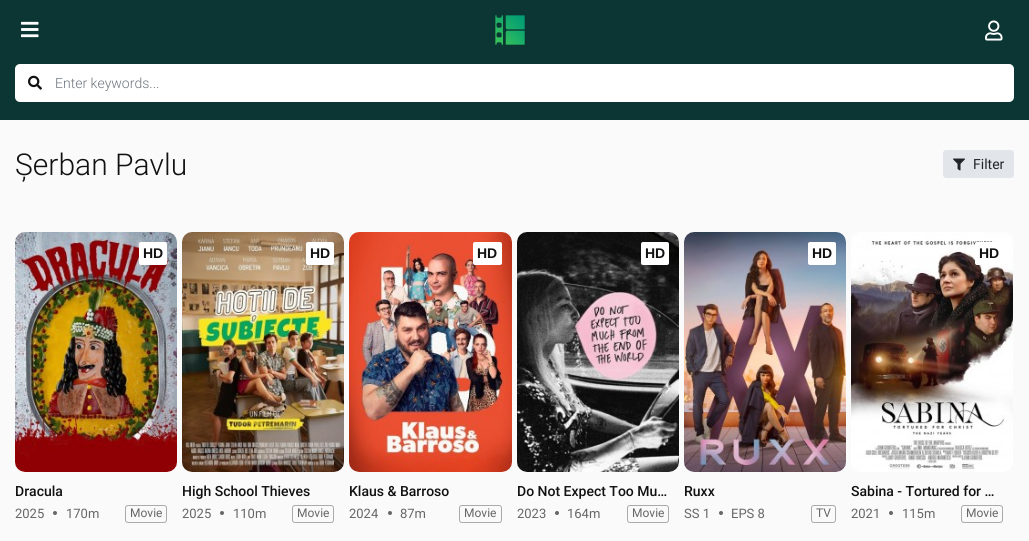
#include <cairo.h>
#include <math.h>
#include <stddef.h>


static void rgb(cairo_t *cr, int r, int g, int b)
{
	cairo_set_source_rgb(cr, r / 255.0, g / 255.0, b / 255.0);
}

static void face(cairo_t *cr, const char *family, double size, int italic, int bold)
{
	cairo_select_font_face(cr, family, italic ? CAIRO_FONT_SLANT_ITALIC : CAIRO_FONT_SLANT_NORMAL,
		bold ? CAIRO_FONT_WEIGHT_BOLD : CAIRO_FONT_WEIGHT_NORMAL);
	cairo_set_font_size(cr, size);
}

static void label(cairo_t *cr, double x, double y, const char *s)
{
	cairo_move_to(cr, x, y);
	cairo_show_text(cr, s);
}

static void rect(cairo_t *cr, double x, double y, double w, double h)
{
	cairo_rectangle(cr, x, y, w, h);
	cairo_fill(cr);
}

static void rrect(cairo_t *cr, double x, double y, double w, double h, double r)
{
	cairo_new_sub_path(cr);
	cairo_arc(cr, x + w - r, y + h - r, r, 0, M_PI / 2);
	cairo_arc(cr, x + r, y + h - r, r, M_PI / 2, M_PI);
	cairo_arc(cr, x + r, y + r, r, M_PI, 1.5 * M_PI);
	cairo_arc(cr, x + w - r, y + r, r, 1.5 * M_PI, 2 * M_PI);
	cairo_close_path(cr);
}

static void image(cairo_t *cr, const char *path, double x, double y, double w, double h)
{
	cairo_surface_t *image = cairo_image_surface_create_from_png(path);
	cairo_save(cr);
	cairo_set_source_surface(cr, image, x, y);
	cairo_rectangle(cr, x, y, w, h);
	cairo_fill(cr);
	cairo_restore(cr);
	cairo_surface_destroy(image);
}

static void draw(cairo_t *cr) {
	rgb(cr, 250, 250, 250);
	cairo_paint(cr);
	rgb(cr, 12, 54, 51);
	rect(cr, 0, 0, 1029, 120);
	image(cr, "image0.png", 21, 21, 18, 17);
	image(cr, "image1.png", 495, 15, 30, 30);
	image(cr, "image2.png", 985, 20, 18, 21);
	rgb(cr, 255, 255, 255);
	rrect(cr, 15, 64, 999, 38, 5);
	cairo_fill(cr);
	image(cr, "image3.png", 28, 75, 14, 15);
	face(cr, "Roboto Light", 14, 0, 0);
	rgb(cr, 108, 117, 125);
	label(cr, 55, 88, "Enter keywords...");
	face(cr, "Roboto Light", 30, 0, 0);
	rgb(cr, 17, 17, 17);
	label(cr, 15, 175, "Șerban Pavlu");
	rgb(cr, 226, 230, 234);
	rrect(cr, 943, 150, 71, 28, 3);
	cairo_fill(cr);
	image(cr, "image4.png", 953, 158, 12, 13);
	face(cr, "Roboto", 14, 0, 0);
	rgb(cr, 33, 37, 41);
	label(cr, 973, 169, "Filter");
	image(cr, "image5.png", 15, 232, 162, 240);
	rgb(cr, 255, 255, 255);
	rrect(cr, 139, 242, 28, 23, 2);
	cairo_fill(cr);
	face(cr, "Liberation Sans", 14, 0, 1);
	rgb(cr, 17, 17, 17);
	label(cr, 143, 258, "HD");
	face(cr, "Roboto Medium", 14, 0, 0);
	label(cr, 15, 496, "Dracula");
	face(cr, "Roboto", 13, 0, 0);
	rgb(cr, 102, 102, 102);
	label(cr, 15, 518, "2025");
	cairo_new_path(cr);
	cairo_arc(cr, 55, 513, 2, 0, 2 * M_PI);
	cairo_fill(cr);
	label(cr, 66, 518, "170m");
	rrect(cr, 125.5, 505.5, 41, 17, 2.5);
	rgb(cr, 170, 170, 170);
	cairo_set_line_width(cr, 1);
	cairo_stroke(cr);
	face(cr, "Roboto", 12, 0, 0);
	rgb(cr, 102, 102, 102);
	label(cr, 130, 517, "Movie");
	image(cr, "image6.png", 182, 232, 162, 240);
	rgb(cr, 255, 255, 255);
	rrect(cr, 306, 242, 28, 23, 2);
	cairo_fill(cr);
	face(cr, "Liberation Sans", 14, 0, 1);
	rgb(cr, 17, 17, 17);
	label(cr, 310, 258, "HD");
	face(cr, "Roboto Medium", 14, 0, 0);
	label(cr, 182, 496, "High School Thieves");
	face(cr, "Roboto", 13, 0, 0);
	rgb(cr, 102, 102, 102);
	label(cr, 182, 518, "2025");
	cairo_new_path(cr);
	cairo_arc(cr, 222, 513, 2, 0, 2 * M_PI);
	cairo_fill(cr);
	label(cr, 233, 518, "110m");
	rrect(cr, 292.5, 505.5, 41, 17, 2.5);
	rgb(cr, 170, 170, 170);
	cairo_stroke(cr);
	face(cr, "Roboto", 12, 0, 0);
	rgb(cr, 102, 102, 102);
	label(cr, 297, 517, "Movie");
	image(cr, "image7.png", 349, 232, 163, 240);
	rgb(cr, 255, 255, 255);
	rrect(cr, 473, 242, 29, 23, 2);
	cairo_fill(cr);
	face(cr, "Liberation Sans", 14, 0, 1);
	rgb(cr, 17, 17, 17);
	label(cr, 477, 258, "HD");
	face(cr, "Roboto Medium", 14, 0, 0);
	label(cr, 349, 496, "Klaus & Barroso");
	face(cr, "Roboto", 13, 0, 0);
	rgb(cr, 102, 102, 102);
	label(cr, 349, 518, "2024");
	cairo_new_path(cr);
	cairo_arc(cr, 390, 513, 2, 0, 2 * M_PI);
	cairo_fill(cr);
	label(cr, 400, 518, "87m");
	rrect(cr, 459.5, 505.5, 42, 17, 2.5);
	rgb(cr, 170, 170, 170);
	cairo_stroke(cr);
	face(cr, "Roboto", 12, 0, 0);
	rgb(cr, 102, 102, 102);
	label(cr, 464, 517, "Movie");
	image(cr, "image8.png", 517, 232, 162, 240);
	rgb(cr, 255, 255, 255);
	rrect(cr, 641, 242, 28, 23, 2);
	cairo_fill(cr);
	face(cr, "Liberation Sans", 14, 0, 1);
	rgb(cr, 17, 17, 17);
	label(cr, 645, 258, "HD");
	face(cr, "Roboto Medium", 14, 0, 0);
	label(cr, 517, 496, "Do Not Expect Too Mu…");
	face(cr, "Roboto", 13, 0, 0);
	rgb(cr, 102, 102, 102);
	label(cr, 517, 518, "2023");
	cairo_new_path(cr);
	cairo_arc(cr, 557, 513, 2, 0, 2 * M_PI);
	cairo_fill(cr);
	label(cr, 567, 518, "164m");
	rrect(cr, 627.5, 505.5, 41, 17, 2.5);
	rgb(cr, 170, 170, 170);
	cairo_stroke(cr);
	face(cr, "Roboto", 12, 0, 0);
	rgb(cr, 102, 102, 102);
	label(cr, 632, 517, "Movie");
	image(cr, "image9.png", 684, 232, 162, 240);
	rgb(cr, 255, 255, 255);
	rrect(cr, 808, 242, 28, 23, 2);
	cairo_fill(cr);
	face(cr, "Liberation Sans", 14, 0, 1);
	rgb(cr, 17, 17, 17);
	label(cr, 812, 258, "HD");
	face(cr, "Roboto Medium", 14, 0, 0);
	label(cr, 684, 496, "Ruxx");
	face(cr, "Roboto", 13, 0, 0);
	rgb(cr, 102, 102, 102);
	label(cr, 684, 518, "SS 1");
	cairo_new_path(cr);
	cairo_arc(cr, 721, 513, 2, 0, 2 * M_PI);
	cairo_fill(cr);
	label(cr, 731, 518, "EPS 8");
	rrect(cr, 811.5, 505.5, 24, 17, 2.5);
	rgb(cr, 170, 170, 170);
	cairo_stroke(cr);
	face(cr, "Roboto", 12, 0, 0);
	rgb(cr, 102, 102, 102);
	label(cr, 816, 517, "TV");
	image(cr, "image10.png", 851, 232, 162, 240);
	rgb(cr, 255, 255, 255);
	rrect(cr, 975, 242, 28, 23, 2);
	cairo_fill(cr);
	face(cr, "Liberation Sans", 14, 0, 1);
	rgb(cr, 17, 17, 17);
	label(cr, 979, 258, "HD");
	face(cr, "Roboto Medium", 14, 0, 0);
	label(cr, 851, 496, "Sabina - Tortured for …");
	face(cr, "Roboto", 13, 0, 0);
	rgb(cr, 102, 102, 102);
	label(cr, 851, 518, "2021");
	cairo_new_path(cr);
	cairo_arc(cr, 891, 513, 2, 0, 2 * M_PI);
	cairo_fill(cr);
	label(cr, 902, 518, "115m");
	rrect(cr, 961.5, 505.5, 41, 17, 2.5);
	rgb(cr, 170, 170, 170);
	cairo_stroke(cr);
	face(cr, "Roboto", 12, 0, 0);
	rgb(cr, 102, 102, 102);
	label(cr, 966, 517, "Movie");
}

int main(void) {
	cairo_surface_t *surface = cairo_image_surface_create(CAIRO_FORMAT_RGB24, 1029, 541);
	cairo_t *cr = cairo_create(surface);
	cairo_font_options_t *options = cairo_font_options_create();
	cairo_font_options_set_hint_metrics(options, CAIRO_HINT_METRICS_OFF);
	cairo_font_options_set_hint_style(options, CAIRO_HINT_STYLE_NONE);
	cairo_set_font_options(cr, options);
	cairo_set_miter_limit(cr, 4);
	draw(cr);
	cairo_surface_write_to_png(surface, "render.png");
	cairo_font_options_destroy(options);
	cairo_destroy(cr);
	cairo_surface_destroy(surface);
	return 0;
}
